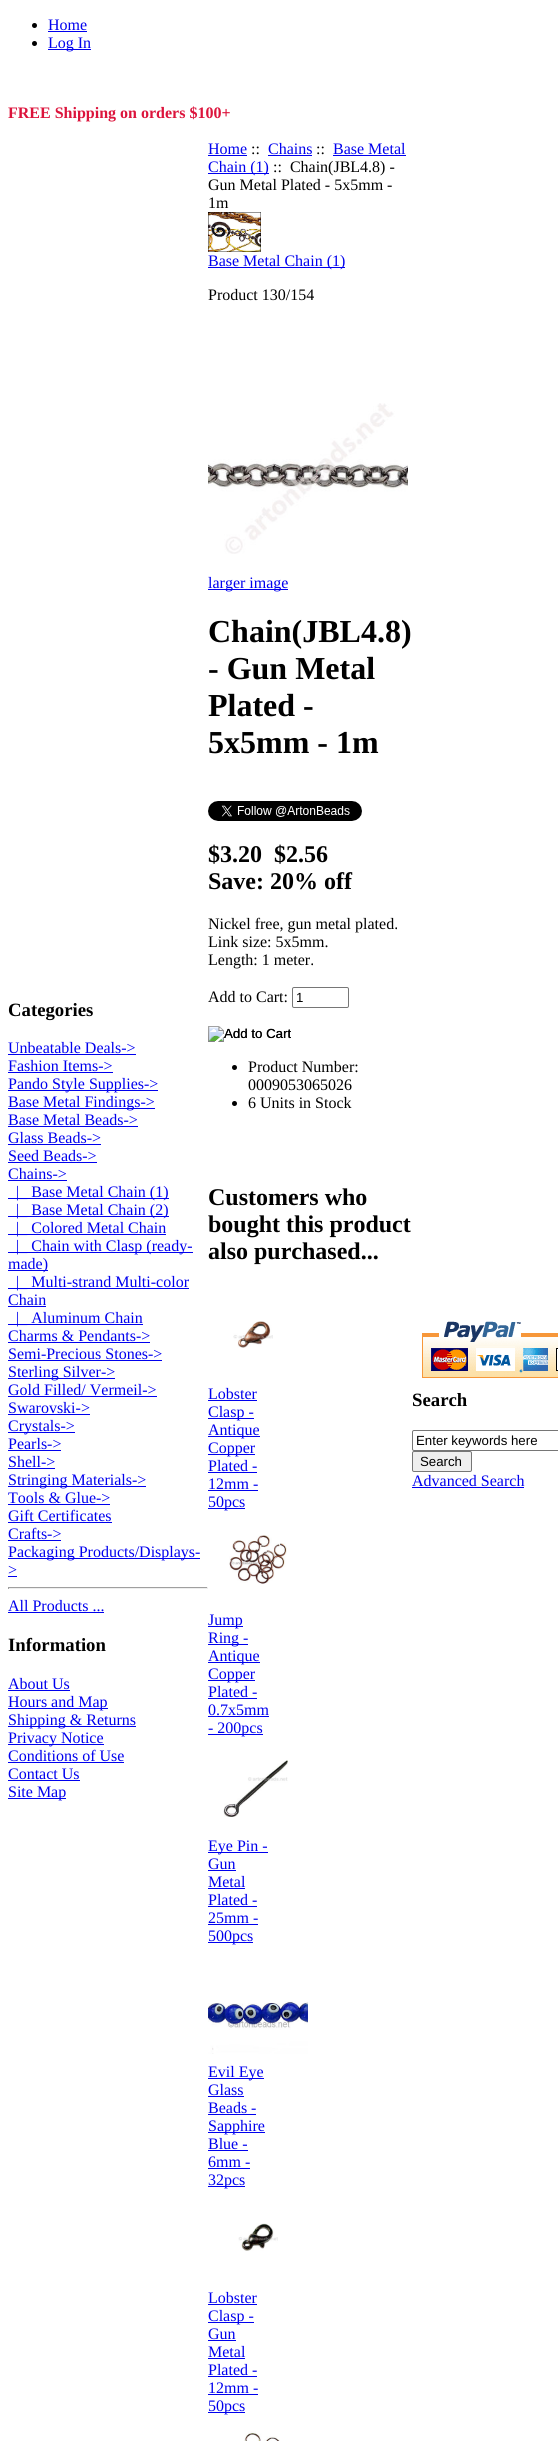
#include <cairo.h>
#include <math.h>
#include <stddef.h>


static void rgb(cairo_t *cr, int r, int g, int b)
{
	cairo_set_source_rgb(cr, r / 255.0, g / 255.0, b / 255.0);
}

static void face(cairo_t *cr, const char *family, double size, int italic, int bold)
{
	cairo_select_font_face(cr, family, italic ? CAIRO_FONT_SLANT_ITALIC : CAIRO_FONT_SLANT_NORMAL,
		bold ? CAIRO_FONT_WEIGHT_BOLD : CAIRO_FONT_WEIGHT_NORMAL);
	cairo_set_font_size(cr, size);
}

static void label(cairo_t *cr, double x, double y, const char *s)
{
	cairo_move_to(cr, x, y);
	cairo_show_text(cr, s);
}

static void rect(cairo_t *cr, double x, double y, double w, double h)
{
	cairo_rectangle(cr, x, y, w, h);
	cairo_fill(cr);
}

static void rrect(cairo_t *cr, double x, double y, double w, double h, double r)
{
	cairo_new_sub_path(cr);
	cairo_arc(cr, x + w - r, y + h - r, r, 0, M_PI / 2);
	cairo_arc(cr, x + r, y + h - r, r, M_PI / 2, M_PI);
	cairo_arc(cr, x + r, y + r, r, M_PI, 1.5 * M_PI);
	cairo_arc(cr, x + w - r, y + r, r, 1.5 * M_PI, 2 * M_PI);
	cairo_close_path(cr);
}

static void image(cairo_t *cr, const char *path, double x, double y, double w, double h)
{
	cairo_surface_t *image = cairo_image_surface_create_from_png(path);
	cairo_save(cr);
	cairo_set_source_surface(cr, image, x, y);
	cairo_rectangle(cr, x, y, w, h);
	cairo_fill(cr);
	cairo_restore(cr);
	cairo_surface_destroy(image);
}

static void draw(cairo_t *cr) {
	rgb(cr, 255, 255, 255);
	cairo_paint(cr);
	rgb(cr, 0, 0, 0);
	cairo_arc(cr, 34.5, 25.5, 2.5, 0, 2 * M_PI);
	cairo_fill(cr);
	face(cr, "Liberation Serif", 16, 0, 0);
	rgb(cr, 0, 0, 238);
	label(cr, 48, 30, "Home");
	rect(cr, 48, 31, 39, 1);
	rgb(cr, 0, 0, 0);
	cairo_new_path(cr);
	cairo_arc(cr, 34.5, 43.5, 2.5, 0, 2 * M_PI);
	cairo_fill(cr);
	rgb(cr, 0, 0, 238);
	rect(cr, 48, 49, 43, 1);
	label(cr, 48, 48, "Log In");
	face(cr, "Liberation Serif", 16, 0, 1);
	rgb(cr, 220, 20, 60);
	label(cr, 8, 118, "FREE Shipping on orders $100+");
	face(cr, "Liberation Serif", 18.75, 0, 1);
	rgb(cr, 0, 0, 0);
	label(cr, 8, 1016, "Categories");
	face(cr, "Liberation Serif", 16, 0, 0);
	rgb(cr, 0, 0, 238);
	label(cr, 8, 1053, "Unbeatable Deals->");
	rect(cr, 8, 1054, 128, 1);
	label(cr, 8, 1071, "Fashion Items->");
	rect(cr, 8, 1072, 105, 1);
	rect(cr, 8, 1090, 150, 1);
	label(cr, 8, 1089, "Pando Style Supplies->");
	rect(cr, 8, 1108, 147, 1);
	label(cr, 8, 1107, "Base Metal Findings->");
	label(cr, 8, 1125, "Base Metal Beads->");
	rect(cr, 8, 1126, 130, 1);
	label(cr, 8, 1143, "Glass Beads->");
	rect(cr, 8, 1144, 93, 1);
	label(cr, 8, 1161, "Seed Beads->");
	rect(cr, 8, 1162, 89, 1);
	label(cr, 8, 1179, "Chains->");
	rect(cr, 8, 1180, 59, 1);
	rect(cr, 8, 1198, 161, 1);
	label(cr, 16, 1197, "|_ Base Metal Chain (1)");
	rect(cr, 8, 1216, 161, 1);
	label(cr, 16, 1215, "|_ Base Metal Chain (2)");
	rect(cr, 8, 1234, 158, 1);
	label(cr, 16, 1233, "|_ Colored Metal Chain");
	rect(cr, 8, 1252, 185, 1);
	label(cr, 16, 1251, "|_ Chain with Clasp (ready-");
	rect(cr, 8, 1270, 40, 1);
	label(cr, 8, 1269, "made)");
	rect(cr, 8, 1288, 181, 1);
	label(cr, 16, 1287, "|_ Multi-strand Multi-color");
	label(cr, 8, 1305, "Chain");
	rect(cr, 8, 1306, 38, 1);
	rect(cr, 8, 1324, 135, 1);
	label(cr, 16, 1323, "|_ Aluminum Chain");
	label(cr, 8, 1341, "Charms & Pendants->");
	rect(cr, 8, 1342, 142, 1);
	label(cr, 8, 1359, "Semi-Precious Stones->");
	rect(cr, 8, 1360, 154, 1);
	rect(cr, 8, 1378, 107, 1);
	label(cr, 8, 1377, "Sterling Silver->");
	label(cr, 8, 1395, "Gold Filled/ Vermeil->");
	rect(cr, 8, 1396, 149, 1);
	label(cr, 8, 1413, "Swarovski->");
	rect(cr, 8, 1414, 82, 1);
	rect(cr, 8, 1432, 67, 1);
	label(cr, 8, 1431, "Crystals->");
	label(cr, 8, 1449, "Pearls->");
	rect(cr, 8, 1450, 53, 1);
	label(cr, 8, 1467, "Shell->");
	rect(cr, 8, 1468, 47, 1);
	rect(cr, 8, 1486, 138, 1);
	label(cr, 8, 1485, "Stringing Materials->");
	label(cr, 8, 1503, "Tools & Glue->");
	rect(cr, 8, 1504, 102, 1);
	label(cr, 8, 1521, "Gift Certificates");
	rect(cr, 8, 1522, 104, 1);
	label(cr, 8, 1539, "Crafts->");
	rect(cr, 8, 1540, 53, 1);
	rect(cr, 8, 1558, 192, 1);
	label(cr, 8, 1557, "Packaging Products/Displays-");
	label(cr, 8, 1575, ">");
	rect(cr, 8, 1576, 9, 1);
	rgb(cr, 159, 159, 159);
	rect(cr, 8, 1587, 200, 1);
	rgb(cr, 238, 238, 238);
	rect(cr, 207, 1587, 1, 2);
	rect(cr, 8, 1588, 200, 1);
	rgb(cr, 159, 159, 159);
	rect(cr, 8, 1587, 1, 2);
	rgb(cr, 0, 0, 238);
	label(cr, 8, 1611, "All Products ...");
	rect(cr, 8, 1612, 96, 1);
	face(cr, "Liberation Serif", 18.75, 0, 1);
	rgb(cr, 0, 0, 0);
	label(cr, 8, 1651, "Information");
	face(cr, "Liberation Serif", 16, 0, 0);
	rgb(cr, 0, 0, 238);
	label(cr, 8, 1689, "About Us");
	rect(cr, 8, 1690, 62, 1);
	rect(cr, 8, 1708, 100, 1);
	label(cr, 8, 1707, "Hours and Map");
	rect(cr, 8, 1726, 128, 1);
	label(cr, 8, 1725, "Shipping & Returns");
	rect(cr, 8, 1744, 96, 1);
	label(cr, 8, 1743, "Privacy Notice");
	label(cr, 8, 1761, "Conditions of Use");
	rect(cr, 8, 1762, 116, 1);
	label(cr, 8, 1779, "Contact Us");
	rect(cr, 8, 1780, 72, 1);
	rect(cr, 8, 1798, 58, 1);
	label(cr, 8, 1797, "Site Map");
	label(cr, 208, 154, "Home");
	rect(cr, 208, 155, 39, 1);
	rgb(cr, 0, 0, 0);
	label(cr, 251, 154, "::");
	rgb(cr, 0, 0, 238);
	label(cr, 268, 154, "Chains");
	rect(cr, 268, 155, 44, 1);
	rgb(cr, 0, 0, 0);
	label(cr, 316, 154, "::");
	rgb(cr, 0, 0, 238);
	label(cr, 333, 154, "Base Metal");
	rect(cr, 333, 155, 73, 1);
	rect(cr, 208, 173, 61, 1);
	label(cr, 208, 172, "Chain (1)");
	rgb(cr, 0, 0, 0);
	label(cr, 273, 172, "::  Chain(JBL4.8) -");
	label(cr, 208, 190, "Gun Metal Plated - 5x5mm -");
	label(cr, 208, 208, "1m");
	image(cr, "image0.png", 208, 212, 53, 40);
	rgb(cr, 0, 0, 238);
	rect(cr, 208, 267, 137, 1);
	label(cr, 208, 266, "Base Metal Chain (1)");
	rgb(cr, 0, 0, 0);
	label(cr, 208, 300, "Product 130/154");
	image(cr, "image1.png", 208, 403, 200, 151);
	rgb(cr, 0, 0, 238);
	rect(cr, 208, 589, 80, 1);
	label(cr, 208, 588, "larger image");
	face(cr, "Liberation Serif", 32, 0, 1);
	rgb(cr, 0, 0, 0);
	label(cr, 208, 642, "Chain(JBL4.8)");
	label(cr, 208, 679, "- Gun Metal");
	label(cr, 208, 716, "Plated -");
	label(cr, 208, 753, "5x5mm - 1m");
	image(cr, "image2.png", 208, 801, 154, 20);
	face(cr, "Liberation Serif", 24, 0, 1);
	label(cr, 208, 862, "$3.20");
	label(cr, 274, 862, "$2.56");
	label(cr, 208, 889, "Save: 20% off");
	face(cr, "Liberation Serif", 16, 0, 0);
	label(cr, 208, 929, "Nickel free, gun metal plated.");
	label(cr, 208, 947, "Link size: 5x5mm.");
	label(cr, 208, 965, "Length: 1 meter.");
	label(cr, 208, 1002, "Add to Cart:");
	rrect(cr, 292.5, 987.5, 56, 20, 1.5);
	rgb(cr, 118, 118, 118);
	cairo_set_line_width(cr, 1);
	cairo_stroke(cr);
	face(cr, "Liberation Sans", 13.25, 0, 0);
	rgb(cr, 0, 0, 0);
	label(cr, 296, 1002, "1");
	image(cr, "image3.png", 208, 1026, 83, 16);
	label(cr, 224, 1038, "Add to Cart");
	cairo_new_path(cr);
	cairo_arc(cr, 234.5, 1067.5, 2.5, 0, 2 * M_PI);
	cairo_fill(cr);
	face(cr, "Liberation Serif", 16, 0, 0);
	label(cr, 248, 1072, "Product Number:");
	label(cr, 248, 1090, "0009053065026");
	cairo_new_path(cr);
	cairo_arc(cr, 234.5, 1103.5, 2.5, 0, 2 * M_PI);
	cairo_fill(cr);
	label(cr, 248, 1108, "6 Units in Stock");
	face(cr, "Liberation Serif", 24, 0, 1);
	label(cr, 208, 1205, "Customers who");
	label(cr, 208, 1232, "bought this product");
	label(cr, 208, 1259, "also purchased...");
	image(cr, "image4.png", 233, 1321, 40, 27);
	face(cr, "Liberation Serif", 16, 0, 0);
	rgb(cr, 0, 0, 238);
	label(cr, 208, 1399, "Lobster");
	rect(cr, 208, 1400, 49, 1);
	rect(cr, 208, 1418, 46, 1);
	label(cr, 208, 1417, "Clasp -");
	rect(cr, 208, 1436, 52, 1);
	label(cr, 208, 1435, "Antique");
	rect(cr, 208, 1454, 47, 1);
	label(cr, 208, 1453, "Copper");
	label(cr, 208, 1471, "Plated -");
	rect(cr, 208, 1472, 49, 1);
	label(cr, 208, 1489, "12mm -");
	rect(cr, 208, 1490, 50, 1);
	rect(cr, 208, 1508, 37, 1);
	label(cr, 208, 1507, "50pcs");
	image(cr, "image5.png", 229, 1535, 58, 49);
	rect(cr, 208, 1626, 35, 1);
	label(cr, 208, 1625, "Jump");
	rect(cr, 208, 1644, 40, 1);
	label(cr, 208, 1643, "Ring -");
	rect(cr, 208, 1662, 52, 1);
	label(cr, 208, 1661, "Antique");
	rect(cr, 208, 1680, 47, 1);
	label(cr, 208, 1679, "Copper");
	label(cr, 208, 1697, "Plated -");
	rect(cr, 208, 1698, 49, 1);
	label(cr, 208, 1715, "0.7x5mm");
	rect(cr, 208, 1716, 61, 1);
	rect(cr, 208, 1734, 55, 1);
	label(cr, 208, 1733, "- 200pcs");
	image(cr, "image6.png", 223, 1760, 65, 57);
	rect(cr, 208, 1852, 60, 1);
	label(cr, 208, 1851, "Eye Pin -");
	label(cr, 208, 1869, "Gun");
	rect(cr, 208, 1870, 28, 1);
	label(cr, 208, 1887, "Metal");
	rect(cr, 208, 1888, 37, 1);
	label(cr, 208, 1905, "Plated -");
	rect(cr, 208, 1906, 49, 1);
	label(cr, 208, 1923, "25mm -");
	rect(cr, 208, 1924, 50, 1);
	rect(cr, 208, 1942, 45, 1);
	label(cr, 208, 1941, "500pcs");
	image(cr, "image7.png", 208, 2001, 100, 53);
	rect(cr, 208, 2078, 56, 1);
	label(cr, 208, 2077, "Evil Eye");
	label(cr, 208, 2095, "Glass");
	rect(cr, 208, 2096, 36, 1);
	label(cr, 208, 2113, "Beads -");
	rect(cr, 208, 2114, 48, 1);
	rect(cr, 208, 2132, 57, 1);
	label(cr, 208, 2131, "Sapphire");
	label(cr, 208, 2149, "Blue -");
	rect(cr, 208, 2150, 40, 1);
	label(cr, 208, 2167, "6mm -");
	rect(cr, 208, 2168, 42, 1);
	rect(cr, 208, 2186, 37, 1);
	label(cr, 208, 2185, "32pcs");
	image(cr, "image8.png", 238, 2223, 40, 28);
	label(cr, 208, 2303, "Lobster");
	rect(cr, 208, 2304, 49, 1);
	rect(cr, 208, 2322, 46, 1);
	label(cr, 208, 2321, "Clasp -");
	label(cr, 208, 2339, "Gun");
	rect(cr, 208, 2340, 28, 1);
	label(cr, 208, 2357, "Metal");
	rect(cr, 208, 2358, 37, 1);
	label(cr, 208, 2375, "Plated -");
	rect(cr, 208, 2376, 49, 1);
	label(cr, 208, 2393, "12mm -");
	rect(cr, 208, 2394, 50, 1);
	rect(cr, 208, 2412, 37, 1);
	label(cr, 208, 2411, "50pcs");
	image(cr, "image9.png", 244, 2431, 36, 10);
	image(cr, "image10.png", 422, 1321, 136, 57);
	face(cr, "Liberation Serif", 18.75, 0, 1);
	rgb(cr, 0, 0, 0);
	label(cr, 412, 1406, "Search");
	rrect(cr, 412.5, 1430.5, 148, 20, 1.5);
	rgb(cr, 118, 118, 118);
	cairo_stroke(cr);
	face(cr, "Liberation Sans", 13.25, 0, 0);
	rgb(cr, 0, 0, 0);
	label(cr, 416, 1445, "Enter keywords here");
	rgb(cr, 239, 239, 239);
	rrect(cr, 412.5, 1451.5, 59, 20, 1.5);
	cairo_fill_preserve(cr);
	rgb(cr, 118, 118, 118);
	cairo_stroke(cr);
	rgb(cr, 0, 0, 0);
	label(cr, 420, 1466, "Search");
	face(cr, "Liberation Serif", 16, 0, 0);
	rgb(cr, 0, 0, 238);
	label(cr, 412, 1486, "Advanced Search");
	rect(cr, 412, 1487, 112, 1);
}

int main(void) {
	cairo_surface_t *surface = cairo_image_surface_create(CAIRO_FORMAT_RGB24, 558, 2441);
	cairo_t *cr = cairo_create(surface);
	cairo_font_options_t *options = cairo_font_options_create();
	cairo_font_options_set_hint_metrics(options, CAIRO_HINT_METRICS_OFF);
	cairo_font_options_set_hint_style(options, CAIRO_HINT_STYLE_NONE);
	cairo_set_font_options(cr, options);
	cairo_set_miter_limit(cr, 4);
	draw(cr);
	cairo_surface_write_to_png(surface, "render.png");
	cairo_font_options_destroy(options);
	cairo_destroy(cr);
	cairo_surface_destroy(surface);
	return 0;
}
